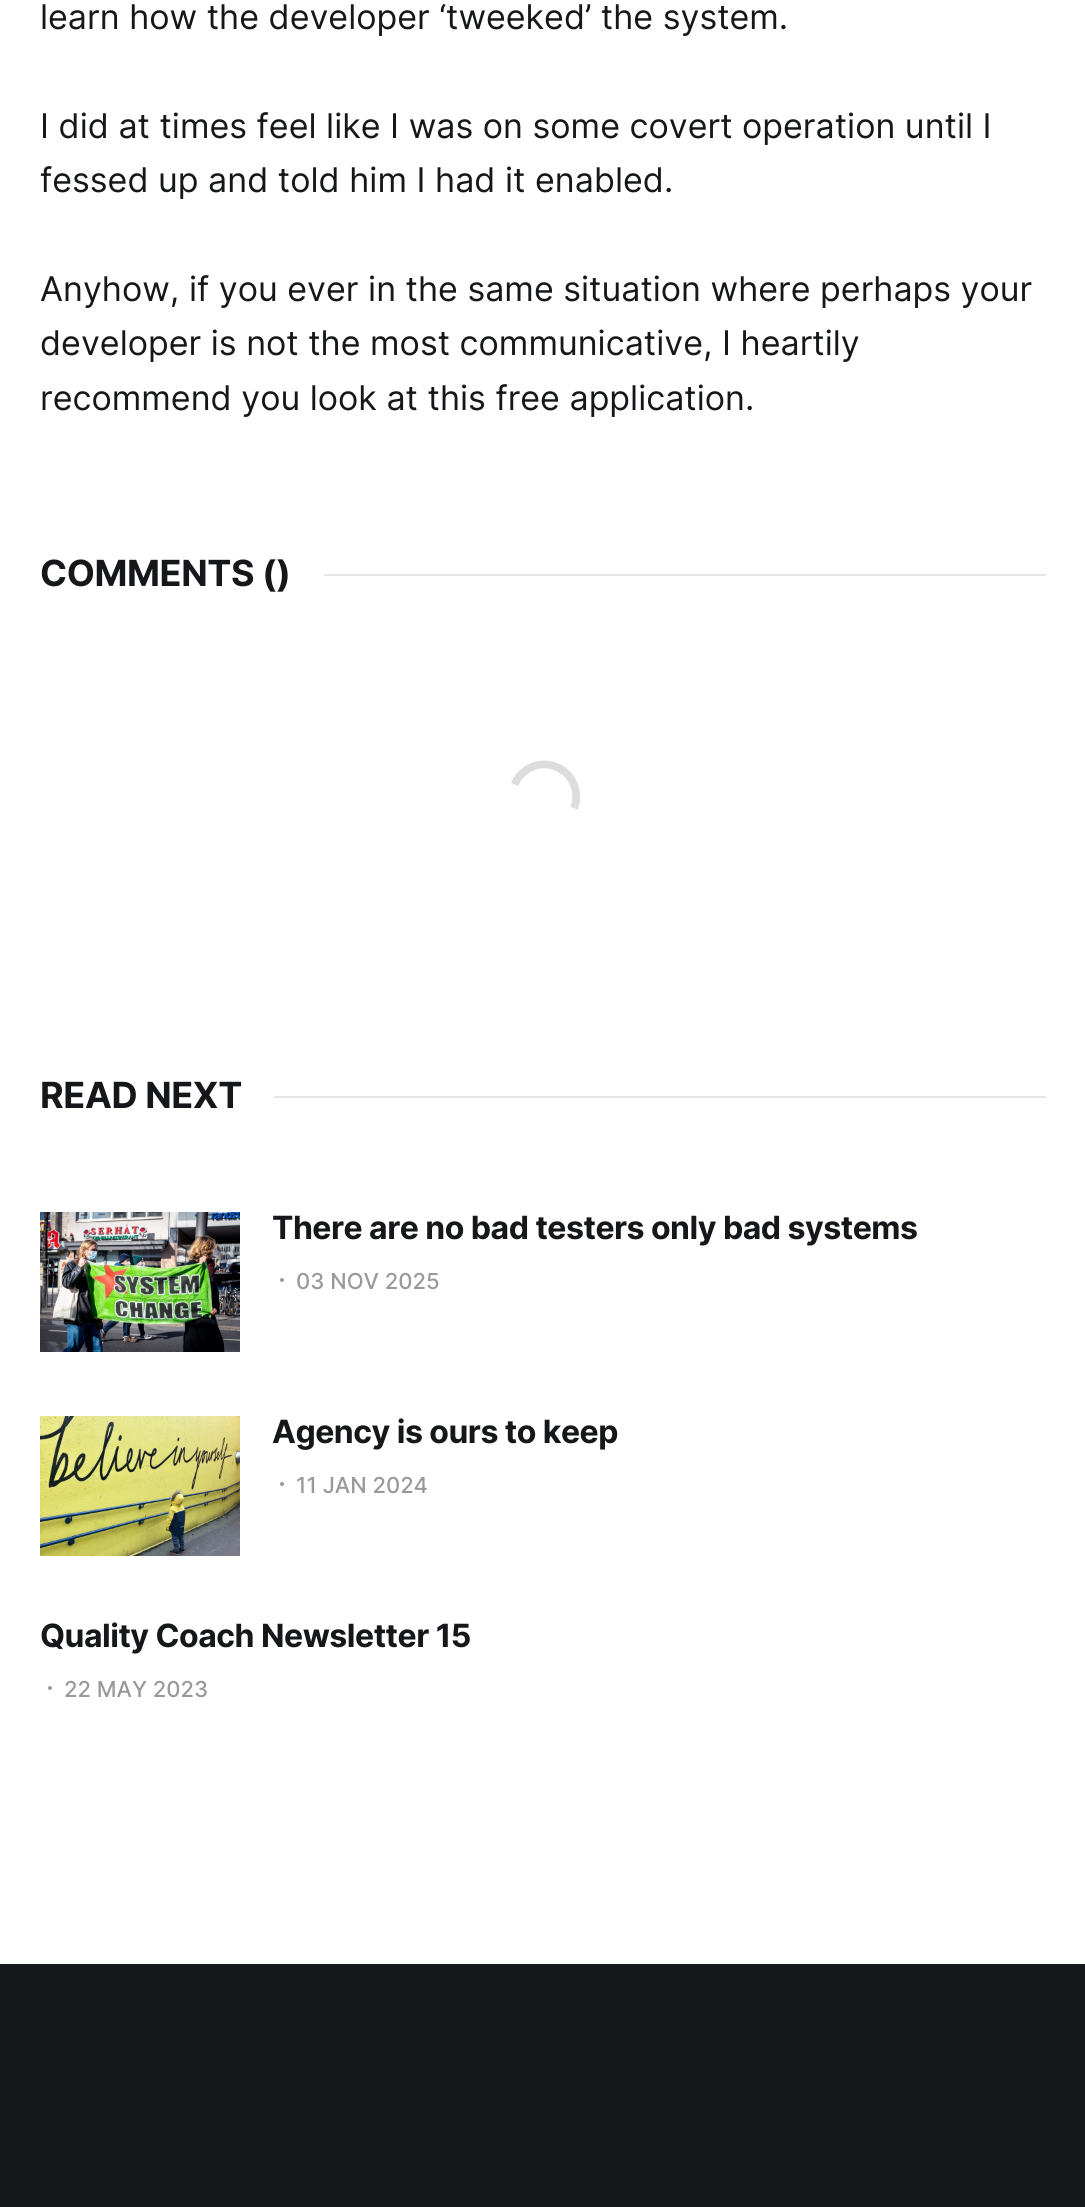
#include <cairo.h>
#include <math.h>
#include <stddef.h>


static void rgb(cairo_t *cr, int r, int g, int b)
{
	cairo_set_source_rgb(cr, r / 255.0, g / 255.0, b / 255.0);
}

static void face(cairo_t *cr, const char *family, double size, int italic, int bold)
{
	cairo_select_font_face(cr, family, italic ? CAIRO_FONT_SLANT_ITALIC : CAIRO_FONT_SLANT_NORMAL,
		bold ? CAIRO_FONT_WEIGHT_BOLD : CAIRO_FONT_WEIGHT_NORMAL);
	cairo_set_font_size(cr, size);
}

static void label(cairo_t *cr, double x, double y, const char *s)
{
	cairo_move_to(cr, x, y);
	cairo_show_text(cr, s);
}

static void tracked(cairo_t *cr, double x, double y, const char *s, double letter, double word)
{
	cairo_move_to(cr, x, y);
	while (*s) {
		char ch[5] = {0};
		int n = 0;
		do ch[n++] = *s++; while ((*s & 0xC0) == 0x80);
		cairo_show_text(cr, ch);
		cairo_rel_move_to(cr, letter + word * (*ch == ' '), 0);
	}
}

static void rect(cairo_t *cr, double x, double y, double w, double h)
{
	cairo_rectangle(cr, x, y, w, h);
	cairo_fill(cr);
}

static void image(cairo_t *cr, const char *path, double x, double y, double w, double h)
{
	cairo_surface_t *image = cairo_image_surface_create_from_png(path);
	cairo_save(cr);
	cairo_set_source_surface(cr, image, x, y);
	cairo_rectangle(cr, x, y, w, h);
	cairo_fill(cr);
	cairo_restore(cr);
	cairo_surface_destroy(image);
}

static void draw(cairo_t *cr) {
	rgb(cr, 255, 255, 255);
	cairo_paint(cr);
	face(cr, "Inter", 34, 0, 0);
	rgb(cr, 21, 23, 26);
	label(cr, 40, 29, "learn how the developer ‘tweeked’ the system.");
	label(cr, 40, 138, "I did at times feel like I was on some covert operation until I");
	label(cr, 40, 192, "fessed up and told him I had it enabled.");
	label(cr, 40, 301, "Anyhow, if you ever in the same situation where perhaps your");
	label(cr, 40, 355, "developer is not the most communicative, I heartily");
	label(cr, 40, 410, "recommend you look at this free application.");
	face(cr, "Inter", 36, 0, 1);
	tracked(cr, 40, 586, "COMMENTS ()", -0.4, 0);
	rgb(cr, 230, 230, 230);
	rect(cr, 324, 574, 722, 2);
	image(cr, "image0.png", 511, 760, 70, 50);
	rgb(cr, 21, 23, 26);
	tracked(cr, 40, 1108, "READ NEXT", -0.4, 0);
	rgb(cr, 230, 230, 230);
	rect(cr, 274, 1096, 772, 2);
	image(cr, "image1.png", 40, 1212, 200, 140);
	face(cr, "Inter", 32, 0, 1);
	rgb(cr, 21, 23, 26);
	tracked(cr, 272, 1239, "There are no bad testers only bad systems", -0.5, 0);
	rgb(cr, 153, 153, 153);
	cairo_new_path(cr);
	cairo_arc(cr, 282, 1280, 2, 0, 2 * M_PI);
	cairo_fill(cr);
	face(cr, "Inter Medium", 22, 0, 0);
	label(cr, 296, 1289, "03 NOV 2025");
	image(cr, "image2.png", 40, 1416, 200, 140);
	face(cr, "Inter", 32, 0, 1);
	rgb(cr, 21, 23, 26);
	tracked(cr, 272, 1443, "Agency is ours to keep", -0.5, 0);
	rgb(cr, 153, 153, 153);
	cairo_new_path(cr);
	cairo_arc(cr, 282, 1484, 2, 0, 2 * M_PI);
	cairo_fill(cr);
	face(cr, "Inter Medium", 22, 0, 0);
	label(cr, 296, 1493, "11 JAN 2024");
	face(cr, "Inter", 32, 0, 1);
	rgb(cr, 21, 23, 26);
	tracked(cr, 40, 1647, "Quality Coach Newsletter 15", -0.5, 0);
	rgb(cr, 153, 153, 153);
	cairo_new_path(cr);
	cairo_arc(cr, 50, 1688, 2, 0, 2 * M_PI);
	cairo_fill(cr);
	face(cr, "Inter Medium", 22, 0, 0);
	label(cr, 64, 1697, "22 MAY 2023");
	rgb(cr, 21, 23, 26);
	rect(cr, 0, 1964, 1085, 243);
}

int main(void) {
	cairo_surface_t *surface = cairo_image_surface_create(CAIRO_FORMAT_RGB24, 1085, 2207);
	cairo_t *cr = cairo_create(surface);
	cairo_font_options_t *options = cairo_font_options_create();
	cairo_font_options_set_hint_metrics(options, CAIRO_HINT_METRICS_OFF);
	cairo_font_options_set_hint_style(options, CAIRO_HINT_STYLE_NONE);
	cairo_set_font_options(cr, options);
	cairo_set_miter_limit(cr, 4);
	draw(cr);
	cairo_surface_write_to_png(surface, "render.png");
	cairo_font_options_destroy(options);
	cairo_destroy(cr);
	cairo_surface_destroy(surface);
	return 0;
}
